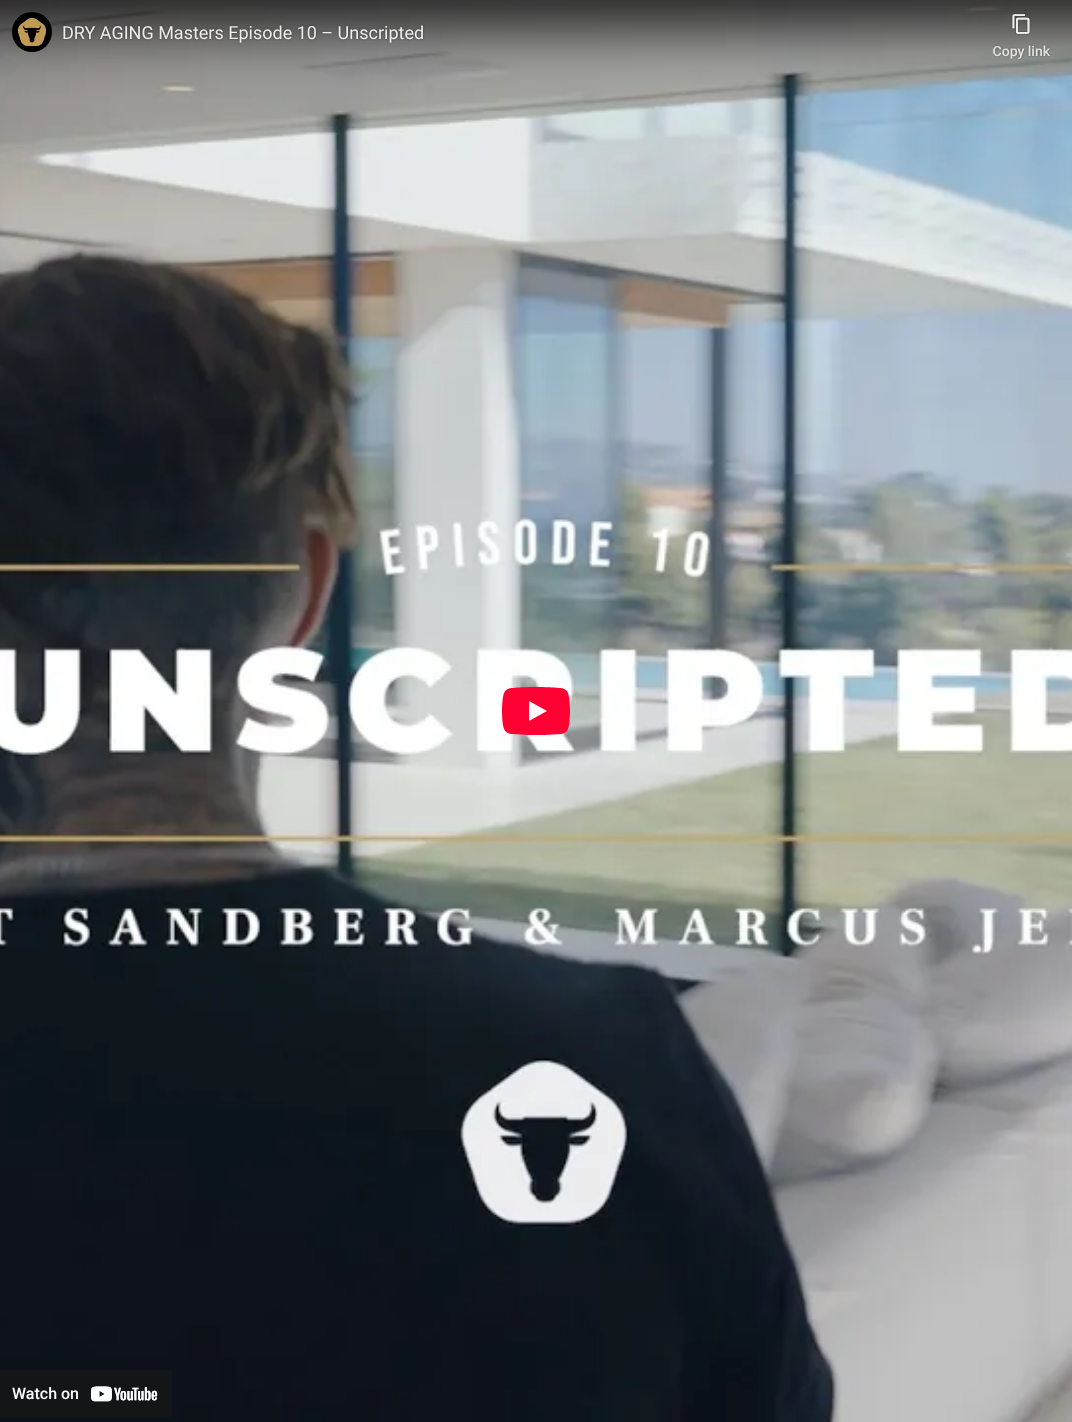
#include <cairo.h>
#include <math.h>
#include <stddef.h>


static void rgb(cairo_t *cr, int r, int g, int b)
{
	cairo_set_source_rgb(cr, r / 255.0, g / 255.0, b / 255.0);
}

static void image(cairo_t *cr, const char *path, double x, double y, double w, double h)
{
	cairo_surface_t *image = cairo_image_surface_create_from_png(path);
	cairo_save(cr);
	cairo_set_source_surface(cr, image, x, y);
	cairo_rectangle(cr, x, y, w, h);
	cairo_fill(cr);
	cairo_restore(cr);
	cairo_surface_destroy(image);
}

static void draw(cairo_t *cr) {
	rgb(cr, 255, 255, 255);
	cairo_paint(cr);
	image(cr, "image0.png", 0, 0, 1072, 1422);
}

int main(void) {
	cairo_surface_t *surface = cairo_image_surface_create(CAIRO_FORMAT_RGB24, 1072, 1422);
	cairo_t *cr = cairo_create(surface);
	cairo_font_options_t *options = cairo_font_options_create();
	cairo_font_options_set_hint_metrics(options, CAIRO_HINT_METRICS_OFF);
	cairo_font_options_set_hint_style(options, CAIRO_HINT_STYLE_NONE);
	cairo_set_font_options(cr, options);
	cairo_set_miter_limit(cr, 4);
	draw(cr);
	cairo_surface_write_to_png(surface, "render.png");
	cairo_font_options_destroy(options);
	cairo_destroy(cr);
	cairo_surface_destroy(surface);
	return 0;
}
